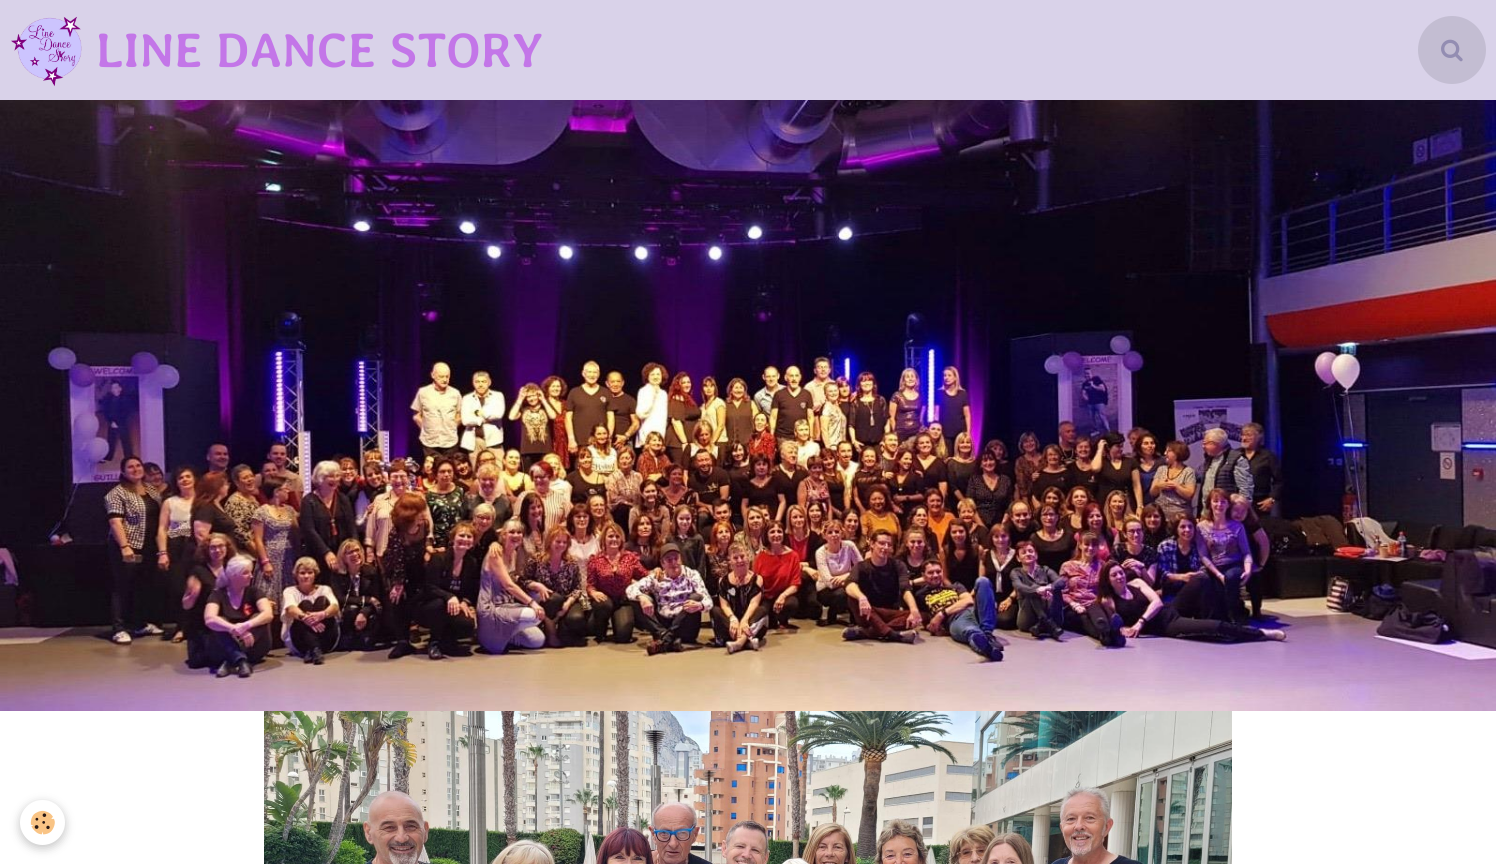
#include <cairo.h>
#include <math.h>
#include <stddef.h>


static void rgb(cairo_t *cr, int r, int g, int b)
{
	cairo_set_source_rgb(cr, r / 255.0, g / 255.0, b / 255.0);
}

static void face(cairo_t *cr, const char *family, double size, int italic, int bold)
{
	cairo_select_font_face(cr, family, italic ? CAIRO_FONT_SLANT_ITALIC : CAIRO_FONT_SLANT_NORMAL,
		bold ? CAIRO_FONT_WEIGHT_BOLD : CAIRO_FONT_WEIGHT_NORMAL);
	cairo_set_font_size(cr, size);
}

static void label(cairo_t *cr, double x, double y, const char *s)
{
	cairo_move_to(cr, x, y);
	cairo_show_text(cr, s);
}

static void rect(cairo_t *cr, double x, double y, double w, double h)
{
	cairo_rectangle(cr, x, y, w, h);
	cairo_fill(cr);
}

static void rrect(cairo_t *cr, double x, double y, double w, double h, double r)
{
	cairo_new_sub_path(cr);
	cairo_arc(cr, x + w - r, y + h - r, r, 0, M_PI / 2);
	cairo_arc(cr, x + r, y + h - r, r, M_PI / 2, M_PI);
	cairo_arc(cr, x + r, y + r, r, M_PI, 1.5 * M_PI);
	cairo_arc(cr, x + w - r, y + r, r, 1.5 * M_PI, 2 * M_PI);
	cairo_close_path(cr);
}

static void soft_shadow(cairo_t *cr, double x, double y, double w, double h, double r, double blur, double alpha)
{
	cairo_push_group_with_content(cr, CAIRO_CONTENT_ALPHA);
	cairo_set_operator(cr, CAIRO_OPERATOR_SOURCE);
	for (int i = 15; i >= -15 && fmin(w, h) + blur * i / 3 > 0; i -= 2) {
		double e = blur * i / 6;
		cairo_set_source_rgba(cr, 0, 0, 0, alpha * erfc((i - 1) / 8.5) / 2);
		rrect(cr, x - e, y - e, w + 2 * e, h + 2 * e, fmax(0, fmin(r + e + blur * .6, fmin(w, h) / 2 + e)));
		cairo_fill(cr);
	}
	cairo_pattern_t *soft = cairo_pop_group(cr);
	cairo_mask(cr, soft);
	cairo_pattern_destroy(soft);
}

static void image(cairo_t *cr, const char *path, double x, double y, double w, double h)
{
	cairo_surface_t *image = cairo_image_surface_create_from_png(path);
	cairo_save(cr);
	cairo_set_source_surface(cr, image, x, y);
	cairo_rectangle(cr, x, y, w, h);
	cairo_fill(cr);
	cairo_restore(cr);
	cairo_surface_destroy(image);
}

static void draw(cairo_t *cr) {
	rgb(cr, 255, 255, 255);
	cairo_paint(cr);
	rgb(cr, 217, 210, 233);
	rect(cr, 0, 0, 1496, 100);
	image(cr, "image0.png", 11, 16, 71, 71);
	face(cr, "Averia Libre", 48.6, 0, 1);
	rgb(cr, 195, 118, 232);
	label(cr, 96, 67, "LINE DANCE STORY");
	rgb(cr, 195, 189, 210);
	cairo_new_path(cr);
	cairo_arc(cr, 1452, 50, 34, 0, 2 * M_PI);
	cairo_fill(cr);
	image(cr, "image1.png", 1441, 39, 22, 23);
	image(cr, "image2.png", 0, 100, 1496, 611);
	rgb(cr, 0, 0, 0);
	soft_shadow(cr, 20, 803, 45, 45, 22.5, 5, 0.24);
	rgb(cr, 255, 255, 255);
	cairo_arc(cr, 42.5, 822.5, 22.5, 0, 2 * M_PI);
	cairo_fill(cr);
	image(cr, "image3.png", 30, 810, 25, 25);
	image(cr, "image4.png", 264, 711, 968, 153);
}

int main(void) {
	cairo_surface_t *surface = cairo_image_surface_create(CAIRO_FORMAT_RGB24, 1496, 864);
	cairo_t *cr = cairo_create(surface);
	cairo_font_options_t *options = cairo_font_options_create();
	cairo_font_options_set_hint_metrics(options, CAIRO_HINT_METRICS_OFF);
	cairo_font_options_set_hint_style(options, CAIRO_HINT_STYLE_NONE);
	cairo_set_font_options(cr, options);
	cairo_set_miter_limit(cr, 4);
	draw(cr);
	cairo_surface_write_to_png(surface, "render.png");
	cairo_font_options_destroy(options);
	cairo_destroy(cr);
	cairo_surface_destroy(surface);
	return 0;
}
